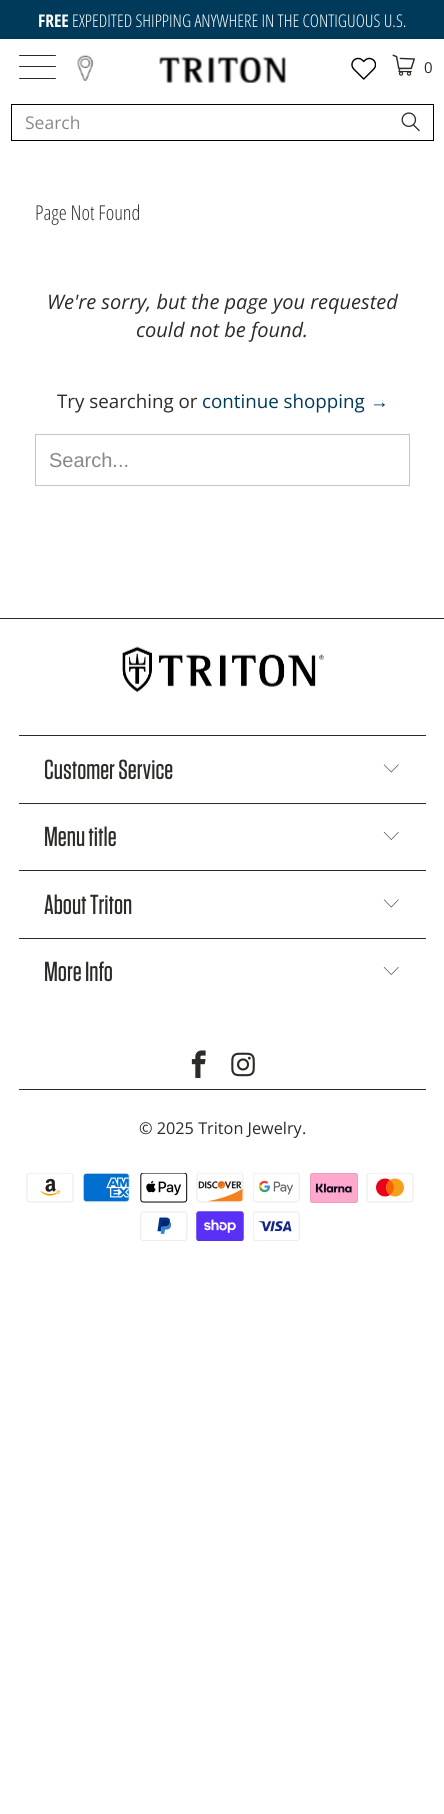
#include <cairo.h>
#include <math.h>
#include <stddef.h>


static void rgb(cairo_t *cr, int r, int g, int b)
{
	cairo_set_source_rgb(cr, r / 255.0, g / 255.0, b / 255.0);
}

static void face(cairo_t *cr, const char *family, double size, int italic, int bold)
{
	cairo_select_font_face(cr, family, italic ? CAIRO_FONT_SLANT_ITALIC : CAIRO_FONT_SLANT_NORMAL,
		bold ? CAIRO_FONT_WEIGHT_BOLD : CAIRO_FONT_WEIGHT_NORMAL);
	cairo_set_font_size(cr, size);
}

static void label(cairo_t *cr, double x, double y, const char *s)
{
	cairo_move_to(cr, x, y);
	cairo_show_text(cr, s);
}

static void rect(cairo_t *cr, double x, double y, double w, double h)
{
	cairo_rectangle(cr, x, y, w, h);
	cairo_fill(cr);
}

static void rrect(cairo_t *cr, double x, double y, double w, double h, double r)
{
	cairo_new_sub_path(cr);
	cairo_arc(cr, x + w - r, y + h - r, r, 0, M_PI / 2);
	cairo_arc(cr, x + r, y + h - r, r, M_PI / 2, M_PI);
	cairo_arc(cr, x + r, y + r, r, M_PI, 1.5 * M_PI);
	cairo_arc(cr, x + w - r, y + r, r, 1.5 * M_PI, 2 * M_PI);
	cairo_close_path(cr);
}

static void image(cairo_t *cr, const char *path, double x, double y, double w, double h)
{
	cairo_surface_t *image = cairo_image_surface_create_from_png(path);
	cairo_save(cr);
	cairo_set_source_surface(cr, image, x, y);
	cairo_rectangle(cr, x, y, w, h);
	cairo_fill(cr);
	cairo_restore(cr);
	cairo_surface_destroy(image);
}

static void draw(cairo_t *cr) {
	rgb(cr, 255, 255, 255);
	cairo_paint(cr);
	rgb(cr, 0, 58, 91);
	rect(cr, 0, 0, 444, 39);
	face(cr, "Open Sans Condensed", 17.5, 0, 1);
	rgb(cr, 252, 252, 252);
	label(cr, 38, 27, "FREE");
	face(cr, "Open Sans Condensed Light", 17.5, 0, 0);
	label(cr, 72, 27, "EXPEDITED SHIPPING ANYWHERE IN THE CONTIGUOUS U.S.");
	rgb(cr, 45, 43, 39);
	rrect(cr, 19, 55, 37, 1, 0.5);
	cairo_fill(cr);
	rrect(cr, 19, 66, 37, 1, 0.5);
	cairo_fill(cr);
	rrect(cr, 19, 78, 37, 1, 0.5);
	cairo_fill(cr);
	image(cr, "image0.png", 77, 55, 17, 26);
	image(cr, "image1.png", 159, 56, 127, 27);
	image(cr, "image2.png", 351, 57, 25, 23);
	image(cr, "image3.png", 392, 54, 23, 22);
	face(cr, "Open Sans", 15, 0, 0);
	label(cr, 424, 73, "0");
	cairo_rectangle(cr, 11.5, 104.5, 422, 36);
	rgb(cr, 0, 0, 0);
	cairo_set_line_width(cr, 1);
	cairo_stroke(cr);
	face(cr, "Open Sans", 17.5, 0, 0);
	rgb(cr, 136, 136, 136);
	label(cr, 25, 129, "Search");
	image(cr, "image4.png", 401, 112, 19, 20);
	face(cr, "Open Sans Condensed Light", 20.5, 0, 0);
	rgb(cr, 51, 51, 51);
	label(cr, 35, 220, "Page Not Found");
	face(cr, "Open Sans", 20, 1, 0);
	rgb(cr, 45, 43, 39);
	label(cr, 47, 309, "We're sorry, but the page you requested");
	label(cr, 136, 337, "could not be found.");
	face(cr, "Open Sans", 18.75, 0, 0);
	label(cr, 57, 408, "Try searching or");
	rgb(cr, 0, 58, 91);
	label(cr, 202, 408, "continue shopping");
	face(cr, "Liberation Serif", 18.75, 0, 0);
	label(cr, 370, 408, "→");
	cairo_rectangle(cr, 35.5, 434.5, 374, 51);
	rgb(cr, 203, 196, 188);
	cairo_stroke(cr);
	face(cr, "Liberation Sans", 20, 0, 0);
	rgb(cr, 136, 136, 136);
	label(cr, 49, 467, "Search...");
	rgb(cr, 45, 43, 39);
	rect(cr, 0, 618, 444, 1);
	image(cr, "image5.png", 122, 646, 202, 46);
	rect(cr, 19, 735, 407, 1);
	face(cr, "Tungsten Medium", 27.5, 0, 0);
	label(cr, 44, 779, "Customer Service");
	image(cr, "image6.png", 383, 764, 16, 9);
	rect(cr, 19, 803, 407, 1);
	label(cr, 44, 846, "Menu title");
	image(cr, "image7.png", 383, 832, 16, 8);
	rect(cr, 19, 870, 407, 1);
	label(cr, 44, 914, "About Triton");
	image(cr, "image6.png", 383, 899, 16, 9);
	rect(cr, 19, 938, 407, 1);
	label(cr, 44, 981, "More Info");
	image(cr, "image7.png", 383, 967, 16, 8);
	image(cr, "image8.png", 191, 1050, 15, 28);
	image(cr, "image9.png", 231, 1052, 24, 25);
	rect(cr, 19, 1089, 407, 1);
	face(cr, "Open Sans", 16.25, 0, 0);
	label(cr, 139, 1134, "© 2025 Triton Jewelry");
	label(cr, 302, 1134, ".");
	image(cr, "image10.png", 26, 1173, 48, 30);
	image(cr, "image11.png", 83, 1173, 47, 30);
	image(cr, "image12.png", 140, 1173, 48, 30);
	image(cr, "image13.png", 196, 1173, 48, 30);
	image(cr, "image14.png", 253, 1173, 47, 30);
	image(cr, "image15.png", 310, 1173, 48, 30);
	image(cr, "image16.png", 366, 1173, 48, 30);
	image(cr, "image17.png", 140, 1211, 48, 30);
	image(cr, "image18.png", 196, 1211, 48, 30);
	image(cr, "image19.png", 253, 1211, 47, 30);
}

int main(void) {
	cairo_surface_t *surface = cairo_image_surface_create(CAIRO_FORMAT_RGB24, 444, 1814);
	cairo_t *cr = cairo_create(surface);
	cairo_font_options_t *options = cairo_font_options_create();
	cairo_font_options_set_hint_metrics(options, CAIRO_HINT_METRICS_OFF);
	cairo_font_options_set_hint_style(options, CAIRO_HINT_STYLE_NONE);
	cairo_set_font_options(cr, options);
	cairo_set_miter_limit(cr, 4);
	draw(cr);
	cairo_surface_write_to_png(surface, "render.png");
	cairo_font_options_destroy(options);
	cairo_destroy(cr);
	cairo_surface_destroy(surface);
	return 0;
}
